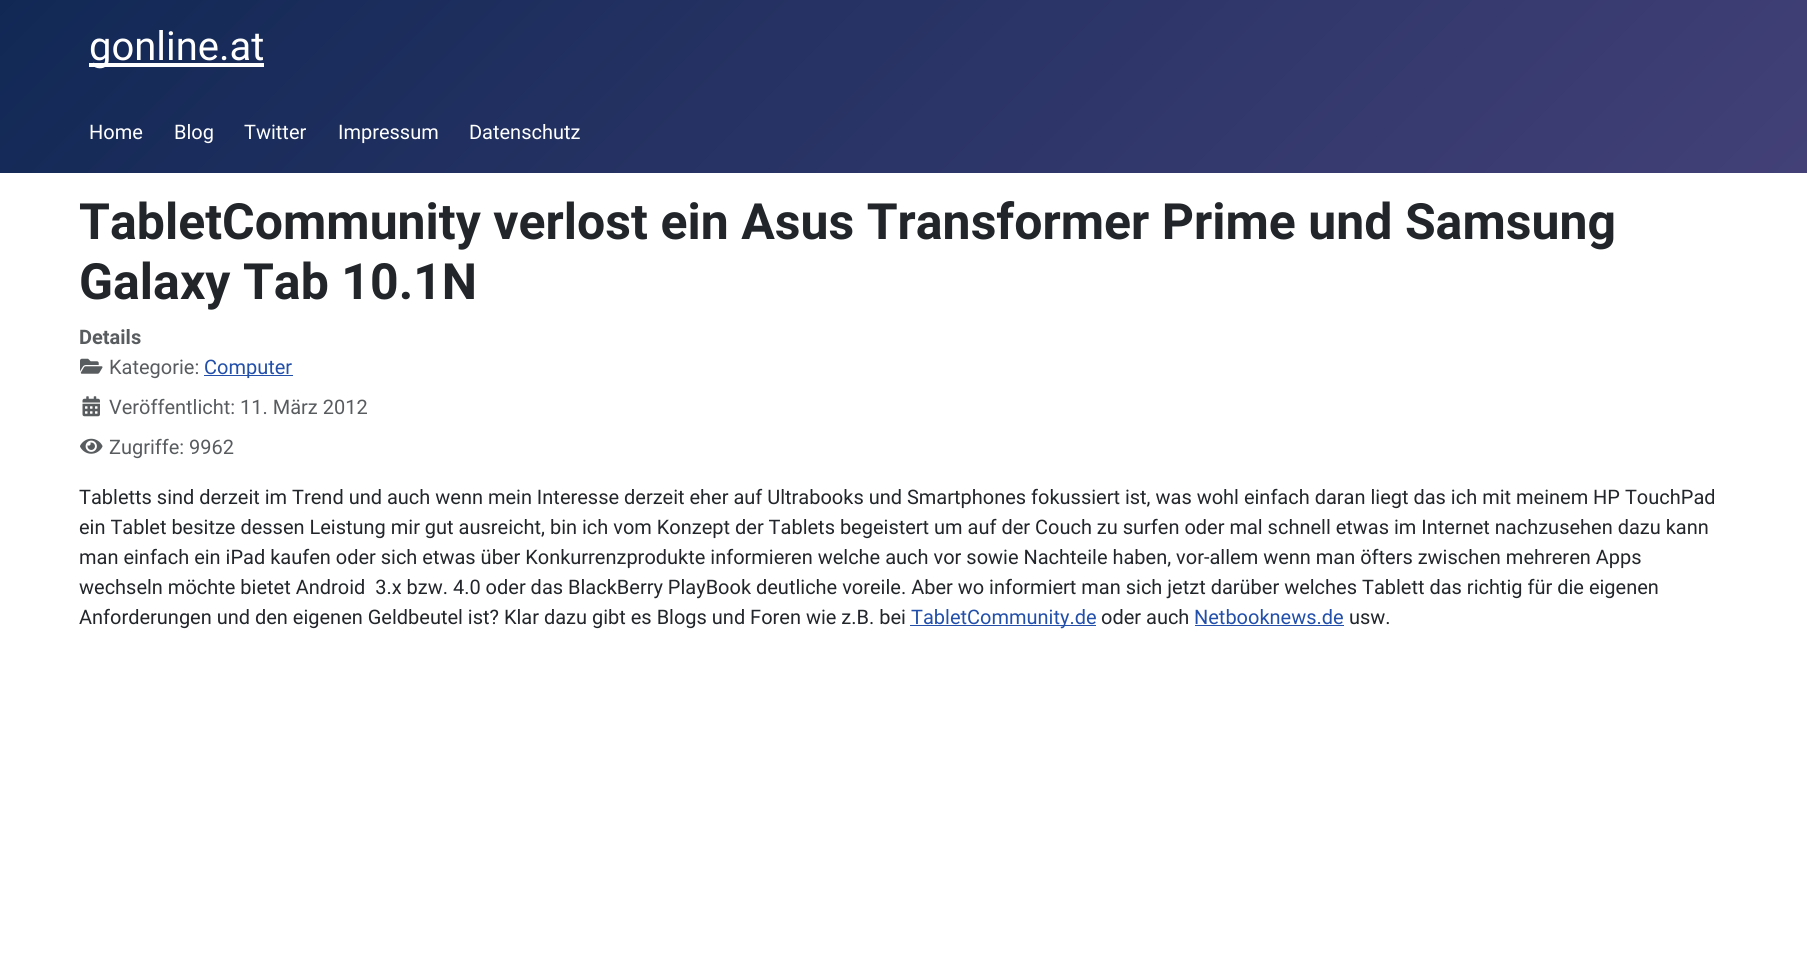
#include <cairo.h>
#include <math.h>
#include <stddef.h>


static void rgb(cairo_t *cr, int r, int g, int b)
{
	cairo_set_source_rgb(cr, r / 255.0, g / 255.0, b / 255.0);
}

static void face(cairo_t *cr, const char *family, double size, int italic, int bold)
{
	cairo_select_font_face(cr, family, italic ? CAIRO_FONT_SLANT_ITALIC : CAIRO_FONT_SLANT_NORMAL,
		bold ? CAIRO_FONT_WEIGHT_BOLD : CAIRO_FONT_WEIGHT_NORMAL);
	cairo_set_font_size(cr, size);
}

static void label(cairo_t *cr, double x, double y, const char *s)
{
	cairo_move_to(cr, x, y);
	cairo_show_text(cr, s);
}

static void rect(cairo_t *cr, double x, double y, double w, double h)
{
	cairo_rectangle(cr, x, y, w, h);
	cairo_fill(cr);
}

static void image(cairo_t *cr, const char *path, double x, double y, double w, double h)
{
	cairo_surface_t *image = cairo_image_surface_create_from_png(path);
	cairo_save(cr);
	cairo_set_source_surface(cr, image, x, y);
	cairo_rectangle(cr, x, y, w, h);
	cairo_fill(cr);
	cairo_restore(cr);
	cairo_surface_destroy(image);
}

static void draw(cairo_t *cr) {
	cairo_pattern_t *gradient;
	rgb(cr, 255, 255, 255);
	cairo_paint(cr);
	gradient = cairo_pattern_create_linear(409, -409, 1399, 581);
	cairo_pattern_add_color_stop_rgba(gradient, 0, 0.067, 0.157, 0.333, 1);
	cairo_pattern_add_color_stop_rgba(gradient, 1, 0.259, 0.251, 0.467, 1);
	cairo_set_source(cr, gradient);
	cairo_pattern_destroy(gradient);
	rect(cr, 0, 0, 1807, 173);
	rgb(cr, 255, 255, 255);
	rect(cr, 89, 63, 175, 4);
	face(cr, "Roboto", 40, 0, 0);
	label(cr, 89, 60, "gonline.at");
	face(cr, "Roboto", 20, 0, 0);
	label(cr, 89, 139, "Home");
	label(cr, 174, 139, "Blog");
	label(cr, 244, 139, "Twitter");
	label(cr, 338, 139, "Impressum");
	label(cr, 469, 139, "Datenschutz");
	face(cr, "Roboto", 50, 0, 1);
	rgb(cr, 34, 38, 42);
	label(cr, 79, 239, "TabletCommunity verlost ein Asus Transformer Prime und Samsung");
	label(cr, 79, 299, "Galaxy Tab 10.1N");
	face(cr, "Roboto", 20, 0, 1);
	rgb(cr, 89, 92, 95);
	label(cr, 79, 344, "Details");
	image(cr, "image0.png", 80, 358, 23, 16);
	face(cr, "Roboto", 20, 0, 0);
	label(cr, 109, 374, "Kategorie:");
	rgb(cr, 34, 79, 170);
	rect(cr, 204, 375, 89, 1);
	label(cr, 204, 374, "Computer");
	image(cr, "image1.png", 82, 396, 18, 21);
	rgb(cr, 89, 92, 95);
	label(cr, 109, 414, "Veröffentlicht: 11. März 2012");
	image(cr, "image2.png", 80, 438, 23, 16);
	label(cr, 109, 454, "Zugriffe: 9962");
	rgb(cr, 34, 38, 42);
	label(cr, 79, 504, "Tabletts sind derzeit im Trend und auch wenn mein Interesse derzeit eher auf Ultrabooks und Smartphones fokussiert ist, was wohl einfach daran liegt das ich mit meinem HP TouchPad");
	label(cr, 79, 534, "ein Tablet besitze dessen Leistung mir gut ausreicht, bin ich vom Konzept der Tablets begeistert um auf der Couch zu surfen oder mal schnell etwas im Internet nachzusehen dazu kann");
	label(cr, 79, 564, "man einfach ein iPad kaufen oder sich etwas über Konkurrenzprodukte informieren welche auch vor sowie Nachteile haben, vor-allem wenn man öfters zwischen mehreren Apps");
	label(cr, 79, 594, "wechseln möchte bietet Android  3.x bzw. 4.0 oder das BlackBerry PlayBook deutliche voreile. Aber wo informiert man sich jetzt darüber welches Tablett das richtig für die eigenen");
	label(cr, 79, 624, "Anforderungen und den eigenen Geldbeutel ist? Klar dazu gibt es Blogs und Foren wie z.B. bei");
	rgb(cr, 34, 79, 170);
	rect(cr, 910, 625, 186, 1);
	label(cr, 911, 624, "TabletCommunity.de");
	rgb(cr, 34, 38, 42);
	label(cr, 1101, 624, "oder auch");
	rgb(cr, 34, 79, 170);
	label(cr, 1194, 624, "Netbooknews.de");
	rect(cr, 1195, 625, 149, 1);
	rgb(cr, 34, 38, 42);
	label(cr, 1349, 624, "usw.");
}

int main(void) {
	cairo_surface_t *surface = cairo_image_surface_create(CAIRO_FORMAT_RGB24, 1807, 966);
	cairo_t *cr = cairo_create(surface);
	cairo_font_options_t *options = cairo_font_options_create();
	cairo_font_options_set_hint_metrics(options, CAIRO_HINT_METRICS_OFF);
	cairo_font_options_set_hint_style(options, CAIRO_HINT_STYLE_NONE);
	cairo_set_font_options(cr, options);
	cairo_set_miter_limit(cr, 4);
	draw(cr);
	cairo_surface_write_to_png(surface, "render.png");
	cairo_font_options_destroy(options);
	cairo_destroy(cr);
	cairo_surface_destroy(surface);
	return 0;
}
